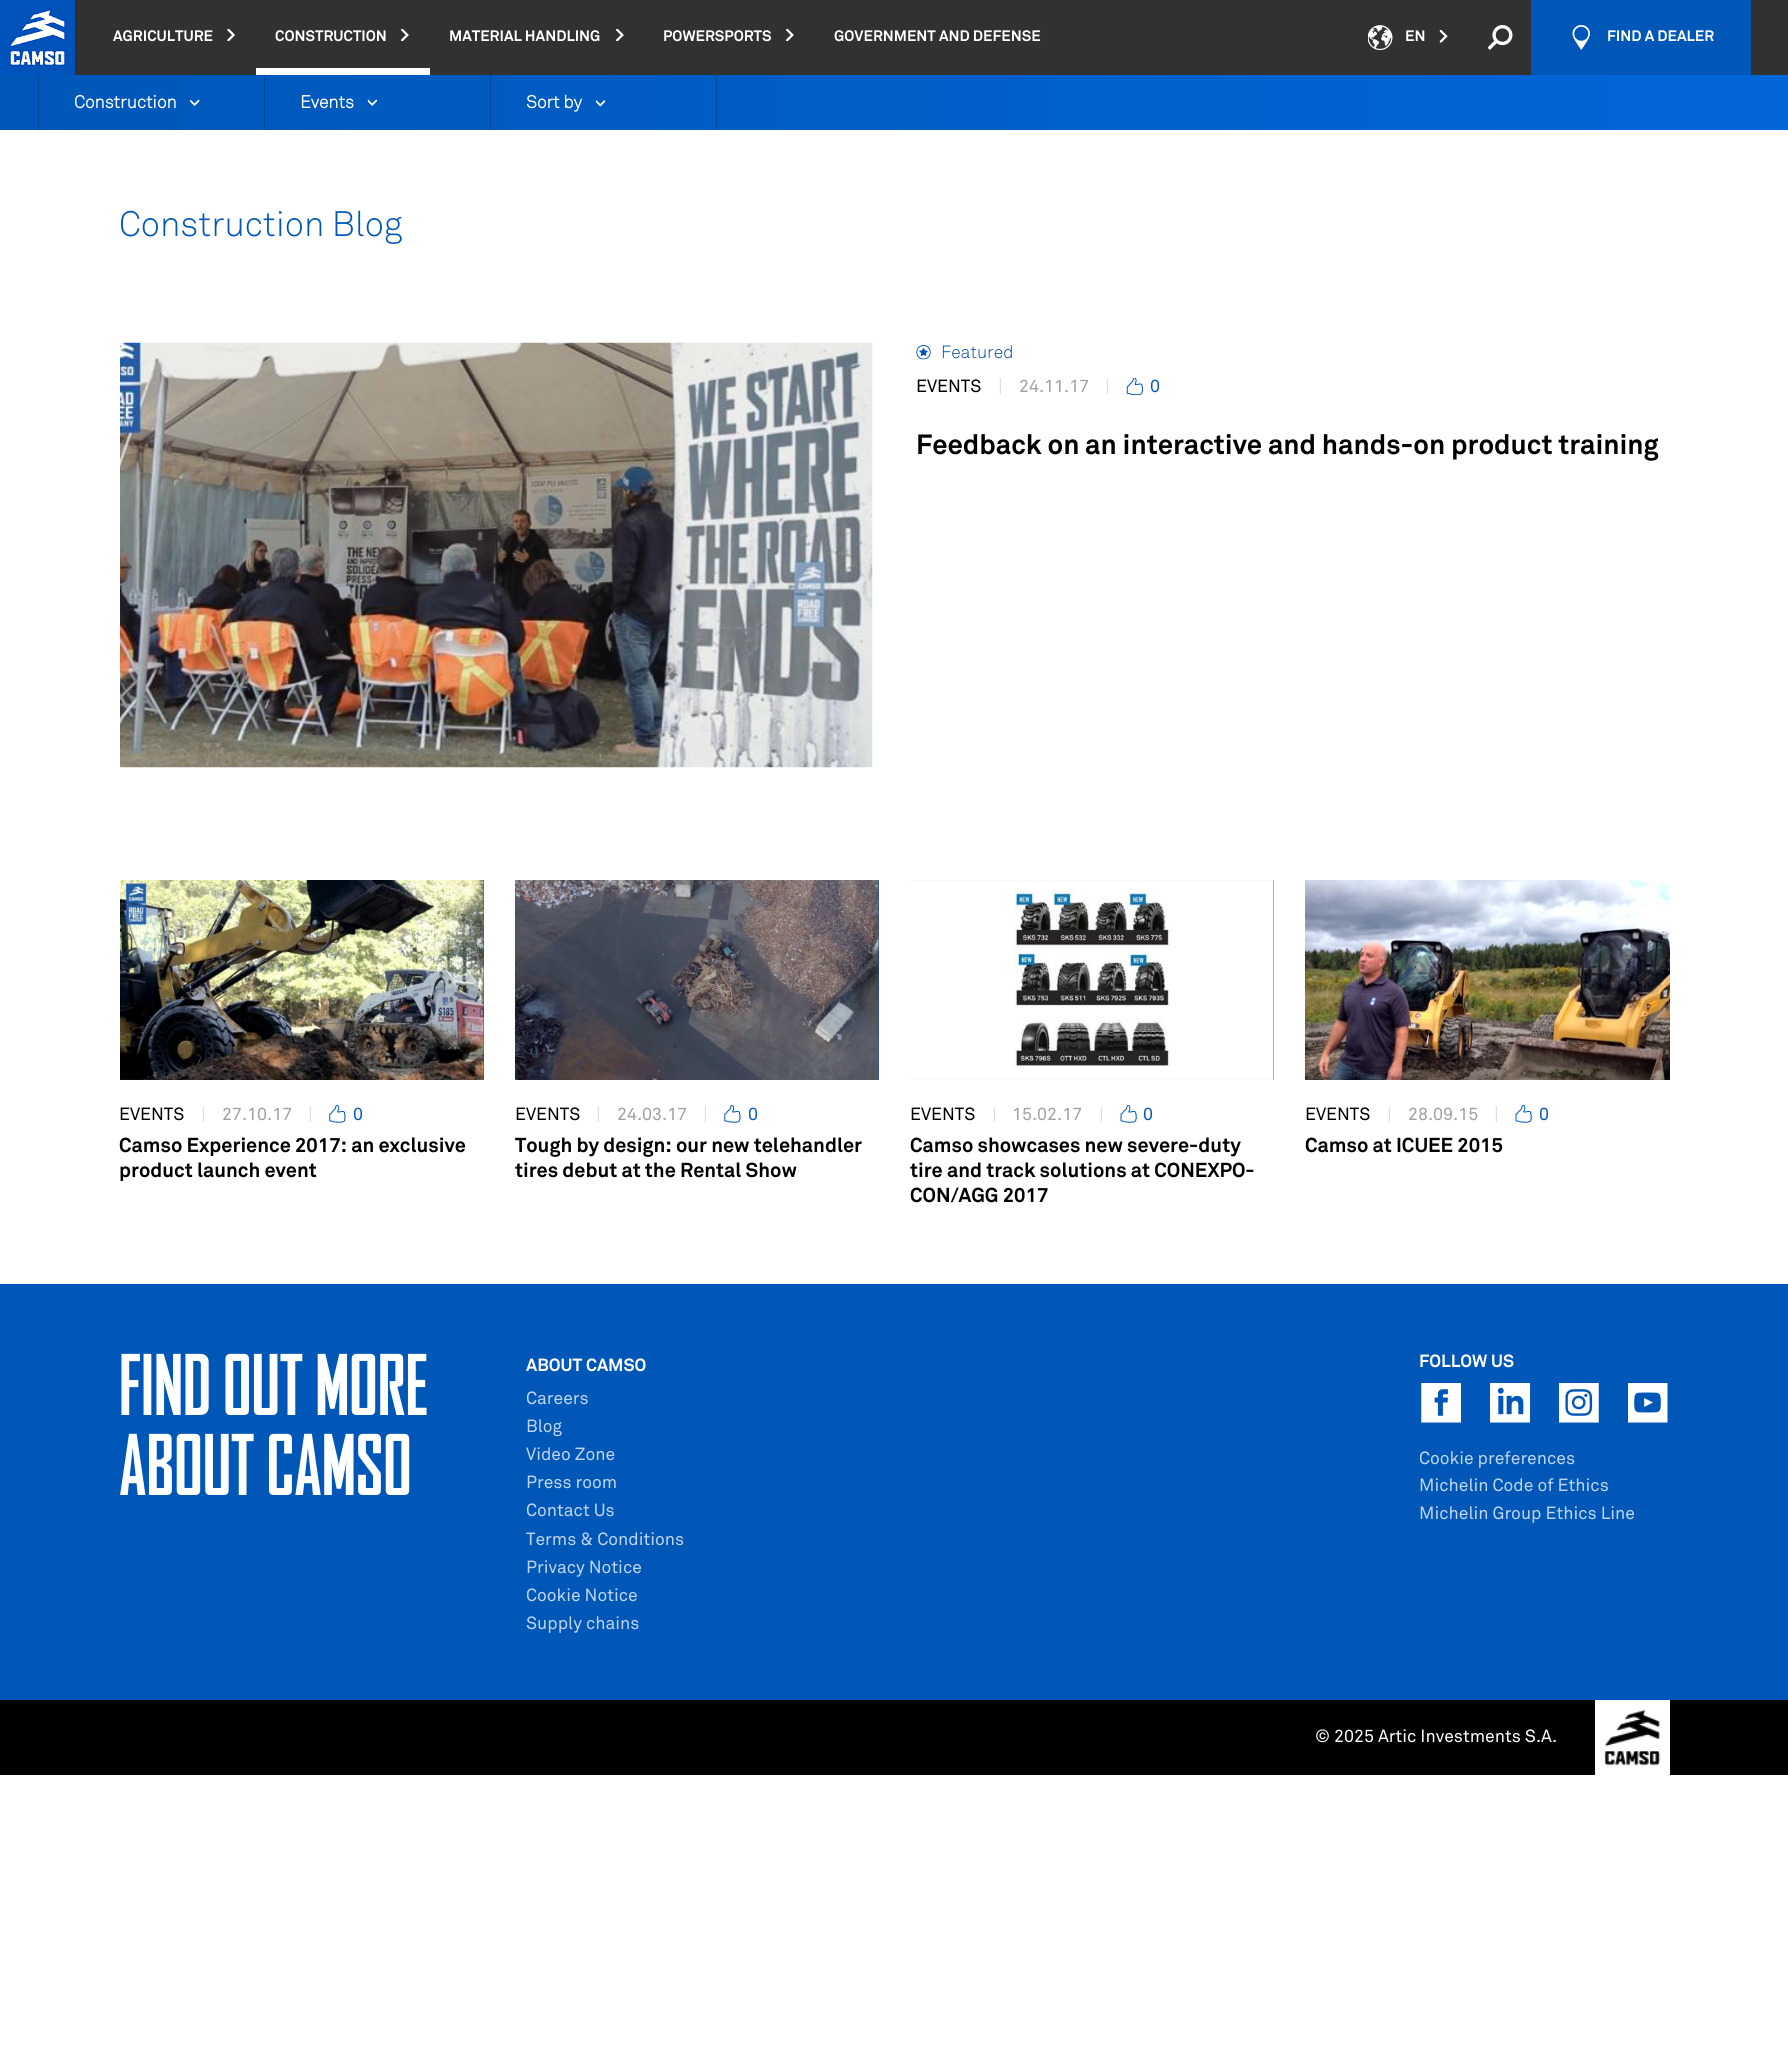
#include <cairo.h>
#include <math.h>
#include <stddef.h>


static void rgb(cairo_t *cr, int r, int g, int b)
{
	cairo_set_source_rgb(cr, r / 255.0, g / 255.0, b / 255.0);
}

static void face(cairo_t *cr, const char *family, double size, int italic, int bold)
{
	cairo_select_font_face(cr, family, italic ? CAIRO_FONT_SLANT_ITALIC : CAIRO_FONT_SLANT_NORMAL,
		bold ? CAIRO_FONT_WEIGHT_BOLD : CAIRO_FONT_WEIGHT_NORMAL);
	cairo_set_font_size(cr, size);
}

static void label(cairo_t *cr, double x, double y, const char *s)
{
	cairo_move_to(cr, x, y);
	cairo_show_text(cr, s);
}

static void rect(cairo_t *cr, double x, double y, double w, double h)
{
	cairo_rectangle(cr, x, y, w, h);
	cairo_fill(cr);
}

static void image(cairo_t *cr, const char *path, double x, double y, double w, double h)
{
	cairo_surface_t *image = cairo_image_surface_create_from_png(path);
	cairo_save(cr);
	cairo_set_source_surface(cr, image, x, y);
	cairo_rectangle(cr, x, y, w, h);
	cairo_fill(cr);
	cairo_restore(cr);
	cairo_surface_destroy(image);
}

static void draw(cairo_t *cr) {
	cairo_pattern_t *gradient;
	rgb(cr, 255, 255, 255);
	cairo_paint(cr);
	rgb(cr, 49, 49, 49);
	rect(cr, 75, 0, 1713, 75);
	image(cr, "image0.png", 0, 0, 75, 75);
	face(cr, "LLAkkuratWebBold", 15, 0, 1);
	rgb(cr, 255, 255, 255);
	label(cr, 113, 41, "AGRICULTURE");
	image(cr, "image1.png", 227, 29, 8, 12);
	label(cr, 275, 41, "CONSTRUCTION");
	image(cr, "image2.png", 401, 29, 8, 12);
	rect(cr, 256, 68, 174, 7);
	label(cr, 449, 41, "MATERIAL HANDLING");
	image(cr, "image2.png", 616, 29, 8, 12);
	label(cr, 663, 41, "POWERSPORTS");
	image(cr, "image2.png", 786, 29, 8, 12);
	label(cr, 834, 41, "GOVERNMENT AND DEFENSE");
	image(cr, "image3.png", 1368, 25, 25, 25);
	label(cr, 1405, 41, "EN");
	image(cr, "image4.png", 1439, 30, 9, 13);
	image(cr, "image5.png", 1488, 25, 25, 25);
	rgb(cr, 0, 87, 184);
	rect(cr, 1531, 0, 220, 75);
	image(cr, "image6.png", 1572, 25, 18, 25);
	rgb(cr, 255, 255, 255);
	label(cr, 1607, 41, "FIND A DEALER");
	gradient = cairo_pattern_create_linear(0, 103, 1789, 102);
	cairo_pattern_add_color_stop_rgba(gradient, 0, 0, 0.341, 0.722, 1);
	cairo_pattern_add_color_stop_rgba(gradient, 1, 0, 0.4, 0.851, 1);
	cairo_set_source(cr, gradient);
	cairo_pattern_destroy(gradient);
	rect(cr, 0, 75, 1788, 55);
	rgb(cr, 0, 72, 153);
	rect(cr, 264, 75, 1, 55);
	rect(cr, 38, 75, 1, 55);
	face(cr, "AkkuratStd", 17.5, 0, 1);
	rgb(cr, 255, 255, 255);
	label(cr, 74, 108, "Construction");
	image(cr, "image7.png", 190, 99, 10, 7);
	rgb(cr, 0, 72, 153);
	rect(cr, 490, 75, 1, 55);
	rgb(cr, 255, 255, 255);
	label(cr, 300, 108, "Events");
	image(cr, "image8.png", 367, 99, 10, 7);
	rgb(cr, 0, 72, 153);
	rect(cr, 716, 75, 1, 55);
	rgb(cr, 255, 255, 255);
	label(cr, 526, 108, "Sort by");
	image(cr, "image9.png", 595, 100, 11, 7);
	face(cr, "AkkuratStd Light", 35, 0, 0);
	rgb(cr, 0, 87, 184);
	label(cr, 119, 236, "Construction Blog");
	image(cr, "image10.png", 120, 342, 753, 426);
	image(cr, "image11.png", 916, 345, 15, 15);
	face(cr, "AkkuratStd Light", 17.5, 0, 0);
	rgb(cr, 0, 72, 153);
	label(cr, 941, 358, "Featured");
	face(cr, "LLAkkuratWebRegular", 17.5, 0, 0);
	rgb(cr, 0, 0, 0);
	label(cr, 916, 392, "EVENTS");
	face(cr, "AkkuratStd Light", 17.5, 0, 0);
	rgb(cr, 201, 201, 201);
	label(cr, 998, 392, "|");
	face(cr, "LLAkkuratWebRegular", 17.5, 0, 0);
	rgb(cr, 160, 160, 160);
	label(cr, 1019, 392, "24.11.17");
	face(cr, "AkkuratStd Light", 17.5, 0, 0);
	rgb(cr, 201, 201, 201);
	label(cr, 1105, 392, "|");
	image(cr, "image12.png", 1126, 378, 18, 17);
	face(cr, "LLAkkuratWebRegular", 17.5, 0, 0);
	rgb(cr, 0, 87, 184);
	label(cr, 1150, 392, "0");
	face(cr, "LLAkkuratWebBold", 27.5, 0, 1);
	rgb(cr, 0, 0, 0);
	label(cr, 916, 454, "Feedback on an interactive and hands-on product training");
	rgb(cr, 0, 87, 184);
	rect(cr, 483, 880, 1, 200);
	image(cr, "image13.png", 120, 880, 364, 200);
	face(cr, "LLAkkuratWebRegular", 17.5, 0, 0);
	rgb(cr, 0, 0, 0);
	label(cr, 119, 1120, "EVENTS");
	face(cr, "AkkuratStd Light", 17.5, 0, 0);
	rgb(cr, 201, 201, 201);
	label(cr, 201, 1120, "|");
	face(cr, "LLAkkuratWebRegular", 17.5, 0, 0);
	rgb(cr, 160, 160, 160);
	label(cr, 222, 1120, "27.10.17");
	face(cr, "AkkuratStd Light", 17.5, 0, 0);
	rgb(cr, 201, 201, 201);
	label(cr, 308, 1120, "|");
	image(cr, "image14.png", 329, 1105, 17, 18);
	face(cr, "LLAkkuratWebRegular", 17.5, 0, 0);
	rgb(cr, 0, 87, 184);
	label(cr, 353, 1120, "0");
	face(cr, "LLAkkuratWebBold", 20, 0, 1);
	rgb(cr, 0, 0, 0);
	label(cr, 119, 1152, "Camso Experience 2017: an exclusive");
	label(cr, 119, 1177, "product launch event");
	rgb(cr, 0, 87, 184);
	rect(cr, 878, 880, 1, 200);
	image(cr, "image15.png", 515, 880, 364, 200);
	face(cr, "LLAkkuratWebRegular", 17.5, 0, 0);
	rgb(cr, 0, 0, 0);
	label(cr, 515, 1120, "EVENTS");
	face(cr, "AkkuratStd Light", 17.5, 0, 0);
	rgb(cr, 201, 201, 201);
	label(cr, 596, 1120, "|");
	face(cr, "LLAkkuratWebRegular", 17.5, 0, 0);
	rgb(cr, 160, 160, 160);
	label(cr, 617, 1120, "24.03.17");
	face(cr, "AkkuratStd Light", 17.5, 0, 0);
	rgb(cr, 201, 201, 201);
	label(cr, 703, 1120, "|");
	image(cr, "image14.png", 724, 1105, 17, 18);
	face(cr, "LLAkkuratWebRegular", 17.5, 0, 0);
	rgb(cr, 0, 87, 184);
	label(cr, 748, 1120, "0");
	face(cr, "LLAkkuratWebBold", 20, 0, 1);
	rgb(cr, 0, 0, 0);
	label(cr, 515, 1152, "Tough by design: our new telehandler");
	label(cr, 515, 1177, "tires debut at the Rental Show");
	rgb(cr, 0, 87, 184);
	rect(cr, 1273, 880, 1, 200);
	image(cr, "image16.png", 910, 880, 364, 200);
	face(cr, "LLAkkuratWebRegular", 17.5, 0, 0);
	rgb(cr, 0, 0, 0);
	label(cr, 910, 1120, "EVENTS");
	face(cr, "AkkuratStd Light", 17.5, 0, 0);
	rgb(cr, 201, 201, 201);
	label(cr, 992, 1120, "|");
	face(cr, "LLAkkuratWebRegular", 17.5, 0, 0);
	rgb(cr, 160, 160, 160);
	label(cr, 1012, 1120, "15.02.17");
	face(cr, "AkkuratStd Light", 17.5, 0, 0);
	rgb(cr, 201, 201, 201);
	label(cr, 1099, 1120, "|");
	image(cr, "image17.png", 1120, 1105, 17, 18);
	face(cr, "LLAkkuratWebRegular", 17.5, 0, 0);
	rgb(cr, 0, 87, 184);
	label(cr, 1143, 1120, "0");
	face(cr, "LLAkkuratWebBold", 20, 0, 1);
	rgb(cr, 0, 0, 0);
	label(cr, 910, 1152, "Camso showcases new severe-duty");
	label(cr, 910, 1177, "tire and track solutions at CONEXPO-");
	label(cr, 910, 1202, "CON/AGG 2017");
	image(cr, "image18.png", 1305, 880, 365, 200);
	face(cr, "LLAkkuratWebRegular", 17.5, 0, 0);
	label(cr, 1305, 1120, "EVENTS");
	face(cr, "AkkuratStd Light", 17.5, 0, 0);
	rgb(cr, 201, 201, 201);
	label(cr, 1387, 1120, "|");
	face(cr, "LLAkkuratWebRegular", 17.5, 0, 0);
	rgb(cr, 160, 160, 160);
	label(cr, 1408, 1120, "28.09.15");
	face(cr, "AkkuratStd Light", 17.5, 0, 0);
	rgb(cr, 201, 201, 201);
	label(cr, 1494, 1120, "|");
	image(cr, "image17.png", 1515, 1105, 17, 18);
	face(cr, "LLAkkuratWebRegular", 17.5, 0, 0);
	rgb(cr, 0, 87, 184);
	label(cr, 1539, 1120, "0");
	face(cr, "LLAkkuratWebBold", 20, 0, 1);
	rgb(cr, 0, 0, 0);
	label(cr, 1305, 1152, "Camso at ICUEE 2015");
	rgb(cr, 0, 87, 184);
	rect(cr, 0, 1284, 1788, 416);
	face(cr, "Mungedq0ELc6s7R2", 80, 0, 0);
	rgb(cr, 255, 255, 255);
	label(cr, 119, 1415, "FIND OUT MORE");
	label(cr, 119, 1495, "ABOUT CAMSO");
	face(cr, "LLAkkuratWebBold", 17.5, 0, 1);
	label(cr, 526, 1371, "ABOUT CAMSO");
	face(cr, "LLAkkuratWebRegular", 17.5, 0, 0);
	rgb(cr, 191, 213, 237);
	label(cr, 526, 1404, "Careers");
	label(cr, 526, 1432, "Blog");
	label(cr, 526, 1460, "Video Zone");
	label(cr, 526, 1488, "Press room");
	label(cr, 526, 1516, "Contact Us");
	label(cr, 526, 1545, "Terms & Conditions");
	label(cr, 526, 1573, "Privacy Notice");
	label(cr, 526, 1601, "Cookie Notice");
	label(cr, 526, 1629, "Supply chains");
	face(cr, "LLAkkuratWebBold", 17.5, 0, 1);
	rgb(cr, 255, 255, 255);
	label(cr, 1419, 1367, "FOLLOW US");
	image(cr, "image19.png", 1421, 1383, 40, 40);
	image(cr, "image20.png", 1490, 1383, 40, 40);
	image(cr, "image21.png", 1559, 1383, 40, 40);
	image(cr, "image22.png", 1628, 1383, 40, 40);
	face(cr, "LLAkkuratWebRegular", 17.5, 0, 0);
	rgb(cr, 191, 213, 237);
	label(cr, 1419, 1464, "Cookie preferences");
	label(cr, 1419, 1491, "Michelin Code of Ethics");
	label(cr, 1419, 1519, "Michelin Group Ethics Line");
	rgb(cr, 0, 0, 0);
	rect(cr, 0, 1700, 1788, 75);
	rgb(cr, 255, 255, 255);
	label(cr, 1315, 1742, "© 2025 Artic Investments S.A.");
	image(cr, "image23.png", 1595, 1700, 75, 75);
}

int main(void) {
	cairo_surface_t *surface = cairo_image_surface_create(CAIRO_FORMAT_RGB24, 1788, 2070);
	cairo_t *cr = cairo_create(surface);
	cairo_font_options_t *options = cairo_font_options_create();
	cairo_font_options_set_hint_metrics(options, CAIRO_HINT_METRICS_OFF);
	cairo_font_options_set_hint_style(options, CAIRO_HINT_STYLE_NONE);
	cairo_set_font_options(cr, options);
	cairo_set_miter_limit(cr, 4);
	draw(cr);
	cairo_surface_write_to_png(surface, "render.png");
	cairo_font_options_destroy(options);
	cairo_destroy(cr);
	cairo_surface_destroy(surface);
	return 0;
}
